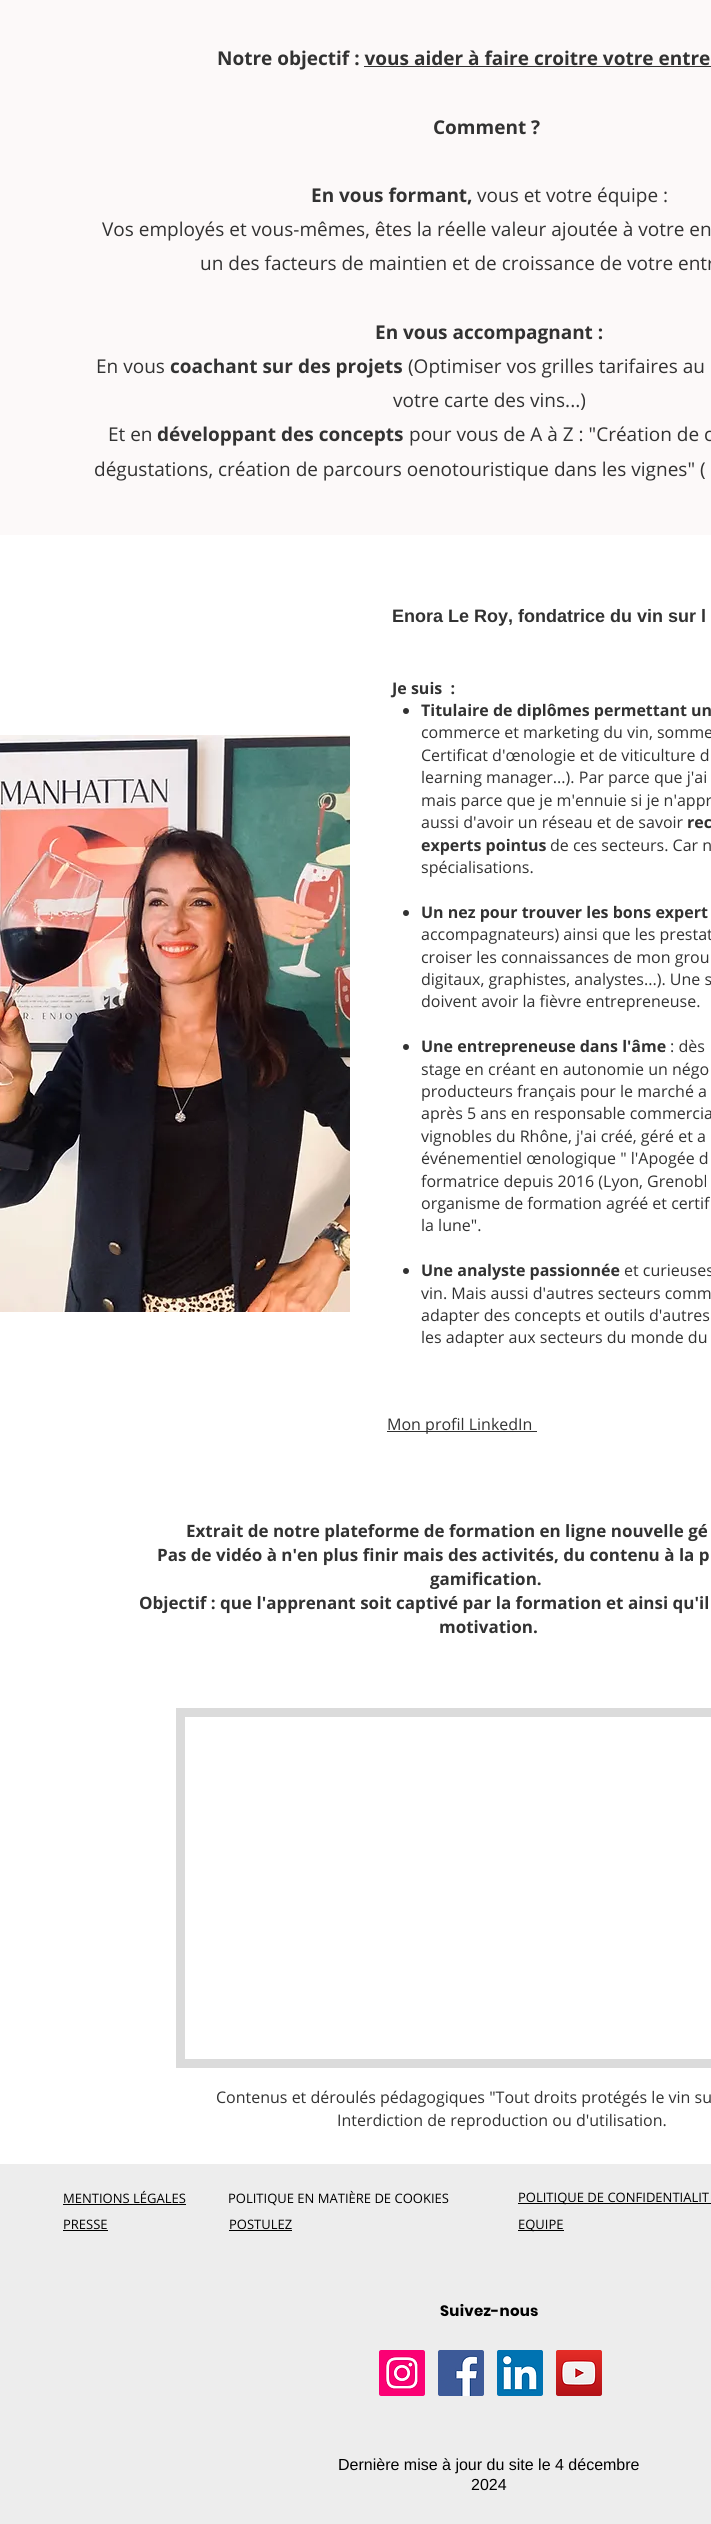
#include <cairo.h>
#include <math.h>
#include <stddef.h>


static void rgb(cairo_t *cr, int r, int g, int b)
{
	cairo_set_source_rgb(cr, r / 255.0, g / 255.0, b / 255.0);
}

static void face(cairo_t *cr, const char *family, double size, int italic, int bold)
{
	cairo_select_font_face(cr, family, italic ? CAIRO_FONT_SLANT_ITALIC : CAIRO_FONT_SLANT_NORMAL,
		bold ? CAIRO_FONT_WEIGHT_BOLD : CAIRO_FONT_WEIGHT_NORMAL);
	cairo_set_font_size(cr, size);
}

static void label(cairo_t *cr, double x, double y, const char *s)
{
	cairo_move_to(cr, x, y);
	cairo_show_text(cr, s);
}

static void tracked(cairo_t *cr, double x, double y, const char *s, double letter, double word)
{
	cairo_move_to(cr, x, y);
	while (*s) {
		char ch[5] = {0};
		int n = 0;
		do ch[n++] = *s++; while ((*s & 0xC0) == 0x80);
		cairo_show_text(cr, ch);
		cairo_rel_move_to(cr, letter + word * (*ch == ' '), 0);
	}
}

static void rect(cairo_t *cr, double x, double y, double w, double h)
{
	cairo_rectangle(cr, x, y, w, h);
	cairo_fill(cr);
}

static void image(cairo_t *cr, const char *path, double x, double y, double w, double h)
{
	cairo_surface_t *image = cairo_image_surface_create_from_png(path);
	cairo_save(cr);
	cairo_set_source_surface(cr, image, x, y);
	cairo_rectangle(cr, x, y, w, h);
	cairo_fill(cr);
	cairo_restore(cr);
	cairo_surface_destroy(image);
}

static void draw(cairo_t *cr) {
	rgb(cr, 255, 255, 255);
	cairo_paint(cr);
	rgb(cr, 252, 249, 249);
	rect(cr, 0, 0, 711, 535);
	face(cr, "Open Sans", 19, 0, 1);
	rgb(cr, 50, 50, 50);
	label(cr, 217, 65, "Notre objectif : vous aider à faire croitre votre entre");
	rect(cr, 364, 66, 347, 1);
	label(cr, 433, 134, "Comment ?");
	label(cr, 311, 202, "En vous formant,");
	face(cr, "Open Sans", 19, 0, 0);
	label(cr, 477, 202, "vous et votre équipe :");
	label(cr, 102, 236, "Vos employés et vous-mêmes, êtes la réelle valeur ajoutée à votre en");
	label(cr, 200, 270, "un des facteurs de maintien et de croissance de votre entr");
	face(cr, "Open Sans", 19, 0, 1);
	label(cr, 375, 339, "En vous accompagnant :");
	face(cr, "Open Sans", 19, 0, 0);
	label(cr, 96, 373, "En vous");
	face(cr, "Open Sans", 19, 0, 1);
	label(cr, 170, 373, "coachant sur des projets");
	face(cr, "Open Sans", 19, 0, 0);
	label(cr, 408, 373, "(Optimiser vos grilles tarifaires au");
	label(cr, 393, 407, "votre carte des vins...)");
	label(cr, 108, 441, "Et en");
	face(cr, "Open Sans", 19, 0, 1);
	label(cr, 157, 441, "développant des concepts");
	face(cr, "Open Sans", 19, 0, 0);
	label(cr, 409, 441, "pour vous de A à Z : \"Création de c");
	label(cr, 94, 476, "dégustations, création de parcours oenotouristique dans les vignes\" (");
	face(cr, "Liberation Sans", 18, 0, 1);
	label(cr, 392, 622, "Enora Le Roy, fondatrice du vin sur l");
	image(cr, "image0.png", 0, 735, 350, 577);
	face(cr, "Open Sans", 16, 0, 1);
	label(cr, 392, 694, "Je suis  :");
	cairo_new_path(cr);
	cairo_arc(cr, 406, 711, 3, 0, 2 * M_PI);
	cairo_fill(cr);
	label(cr, 421, 716, "Titulaire de diplômes permettant un");
	face(cr, "Open Sans", 16, 0, 0);
	label(cr, 421, 738, "commerce et marketing du vin, somme");
	label(cr, 421, 761, "Certificat d'œnologie et de viticulture d");
	label(cr, 421, 783, "learning manager...). Par parce que j'ai");
	label(cr, 421, 806, "mais parce que je m'ennuie si je n'appr");
	label(cr, 421, 828, "aussi d'avoir un réseau et de savoir");
	face(cr, "Open Sans", 16, 0, 1);
	label(cr, 687, 828, "rec");
	label(cr, 421, 851, "experts pointus");
	face(cr, "Open Sans", 16, 0, 0);
	label(cr, 550, 851, "de ces secteurs. Car n");
	label(cr, 421, 873, "spécialisations.");
	cairo_new_path(cr);
	cairo_arc(cr, 406, 913, 3, 0, 2 * M_PI);
	cairo_fill(cr);
	face(cr, "Open Sans", 16, 0, 1);
	label(cr, 421, 918, "Un nez pour trouver les bons expert");
	face(cr, "Open Sans", 16, 0, 0);
	label(cr, 421, 940, "accompagnateurs) ainsi que les prestat");
	label(cr, 421, 963, "croiser les connaissances de mon grou");
	label(cr, 421, 985, "digitaux, graphistes, analystes...). Une s");
	label(cr, 421, 1007, "doivent avoir la fièvre entrepreneuse.");
	cairo_new_path(cr);
	cairo_arc(cr, 406, 1047, 3, 0, 2 * M_PI);
	cairo_fill(cr);
	face(cr, "Open Sans", 16, 0, 1);
	label(cr, 421, 1052, "Une entrepreneuse dans l'âme");
	face(cr, "Open Sans", 16, 0, 0);
	label(cr, 670, 1052, ": dès");
	label(cr, 421, 1075, "stage en créant en autonomie un négo");
	label(cr, 421, 1097, "producteurs français pour le marché a");
	label(cr, 421, 1119, "après 5 ans en responsable commercia");
	label(cr, 421, 1142, "vignobles du Rhône, j'ai créé, géré et a");
	label(cr, 421, 1164, "événementiel œnologique \" l'Apogée d");
	label(cr, 421, 1187, "formatrice depuis 2016 (Lyon, Grenobl");
	label(cr, 421, 1209, "organisme de formation agréé et certif");
	label(cr, 421, 1231, "la lune\".");
	cairo_new_path(cr);
	cairo_arc(cr, 406, 1271, 3, 0, 2 * M_PI);
	cairo_fill(cr);
	face(cr, "Open Sans", 16, 0, 1);
	label(cr, 421, 1276, "Une analyste passionnée");
	face(cr, "Open Sans", 16, 0, 0);
	label(cr, 624, 1276, "et curieuses");
	label(cr, 421, 1299, "vin. Mais aussi d'autres secteurs comm");
	label(cr, 421, 1321, "adapter des concepts et outils d'autres");
	label(cr, 421, 1343, "les adapter aux secteurs du monde du");
	rect(cr, 387, 1431, 150, 1);
	label(cr, 387, 1430, "Mon profil LinkedIn");
	face(cr, "Open Sans", 17, 0, 1);
	label(cr, 186, 1537, "Extrait de notre plateforme de formation en ligne nouvelle gé");
	label(cr, 157, 1561, "Pas de vidéo à n'en plus finir mais des activités, du contenu à la p");
	label(cr, 430, 1585, "gamification.");
	label(cr, 139, 1609, "Objectif : que l'apprenant soit captivé par la formation et ainsi qu'il");
	label(cr, 439, 1633, "motivation.");
	cairo_rectangle(cr, 180.5, 1712.5, 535, 351);
	rgb(cr, 219, 219, 219);
	cairo_set_line_width(cr, 9);
	cairo_stroke(cr);
	face(cr, "Open Sans", 16, 0, 0);
	rgb(cr, 50, 50, 50);
	label(cr, 216, 2103, "Contenus et déroulés pédagogiques \"Tout droits protégés le vin su");
	label(cr, 337, 2126, "Interdiction de reproduction ou d'utilisation.");
	rgb(cr, 237, 237, 237);
	rect(cr, 0, 2164, 711, 360);
	face(cr, "Open Sans", 13, 0, 0);
	rgb(cr, 0, 0, 0);
	label(cr, 63, 2203, "MENTIONS LÉGALES");
	rect(cr, 63, 2204, 123, 1);
	label(cr, 228, 2203, "POLITIQUE EN MATIÈRE DE COOKIES");
	rect(cr, 518, 2203, 193, 1);
	label(cr, 518, 2202, "POLITIQUE DE CONFIDENTIALIT");
	label(cr, 63, 2229, "PRESSE");
	rect(cr, 63, 2230, 45, 1);
	label(cr, 229, 2229, "POSTULEZ");
	rect(cr, 229, 2230, 63, 1);
	rect(cr, 518, 2230, 46, 1);
	label(cr, 518, 2229, "EQUIPE");
	face(cr, "Poppins", 15, 0, 1);
	tracked(cr, 440, 2316, "Suivez-nous", 0.25, 0);
	image(cr, "image1.png", 379, 2350, 46, 46);
	image(cr, "image2.png", 438, 2350, 46, 46);
	image(cr, "image3.png", 497, 2350, 46, 46);
	image(cr, "image4.png", 556, 2350, 46, 46);
	face(cr, "Liberation Sans", 16, 0, 0);
	label(cr, 338, 2470, "Dernière mise à jour du site le 4 décembre");
	label(cr, 471, 2490, "2024");
}

int main(void) {
	cairo_surface_t *surface = cairo_image_surface_create(CAIRO_FORMAT_RGB24, 711, 2524);
	cairo_t *cr = cairo_create(surface);
	cairo_font_options_t *options = cairo_font_options_create();
	cairo_font_options_set_hint_metrics(options, CAIRO_HINT_METRICS_OFF);
	cairo_font_options_set_hint_style(options, CAIRO_HINT_STYLE_NONE);
	cairo_set_font_options(cr, options);
	cairo_set_miter_limit(cr, 4);
	draw(cr);
	cairo_surface_write_to_png(surface, "render.png");
	cairo_font_options_destroy(options);
	cairo_destroy(cr);
	cairo_surface_destroy(surface);
	return 0;
}
